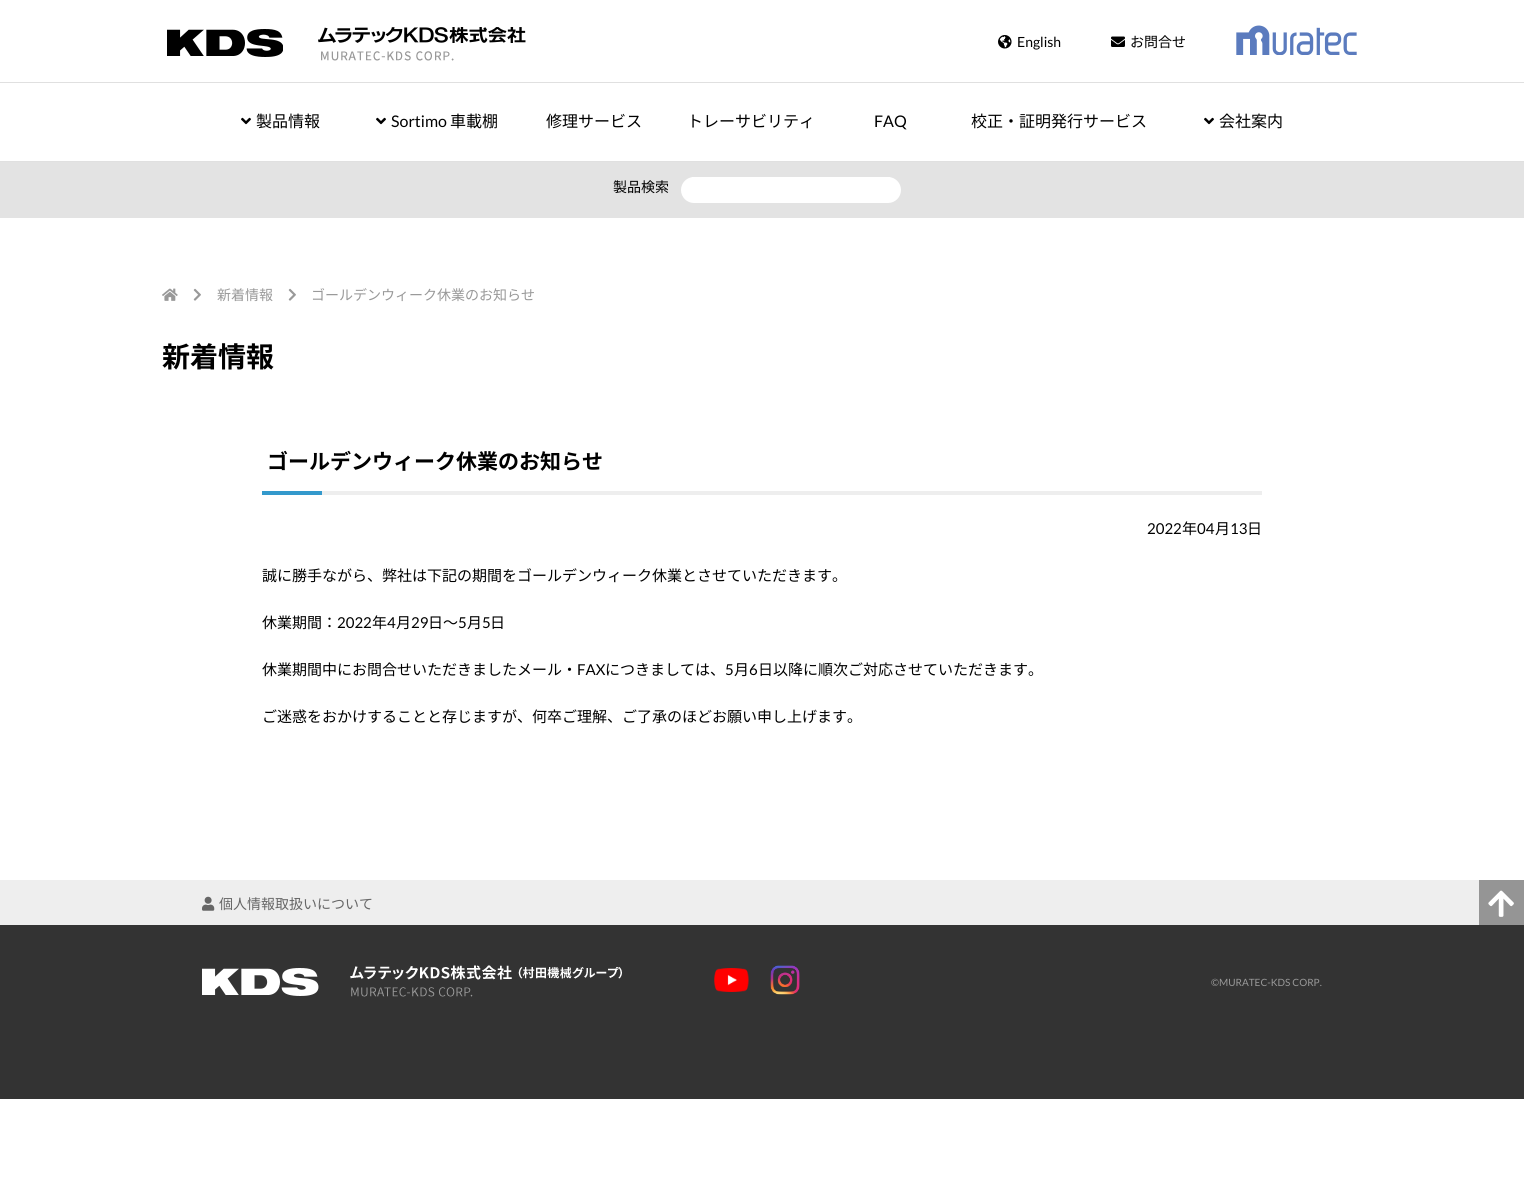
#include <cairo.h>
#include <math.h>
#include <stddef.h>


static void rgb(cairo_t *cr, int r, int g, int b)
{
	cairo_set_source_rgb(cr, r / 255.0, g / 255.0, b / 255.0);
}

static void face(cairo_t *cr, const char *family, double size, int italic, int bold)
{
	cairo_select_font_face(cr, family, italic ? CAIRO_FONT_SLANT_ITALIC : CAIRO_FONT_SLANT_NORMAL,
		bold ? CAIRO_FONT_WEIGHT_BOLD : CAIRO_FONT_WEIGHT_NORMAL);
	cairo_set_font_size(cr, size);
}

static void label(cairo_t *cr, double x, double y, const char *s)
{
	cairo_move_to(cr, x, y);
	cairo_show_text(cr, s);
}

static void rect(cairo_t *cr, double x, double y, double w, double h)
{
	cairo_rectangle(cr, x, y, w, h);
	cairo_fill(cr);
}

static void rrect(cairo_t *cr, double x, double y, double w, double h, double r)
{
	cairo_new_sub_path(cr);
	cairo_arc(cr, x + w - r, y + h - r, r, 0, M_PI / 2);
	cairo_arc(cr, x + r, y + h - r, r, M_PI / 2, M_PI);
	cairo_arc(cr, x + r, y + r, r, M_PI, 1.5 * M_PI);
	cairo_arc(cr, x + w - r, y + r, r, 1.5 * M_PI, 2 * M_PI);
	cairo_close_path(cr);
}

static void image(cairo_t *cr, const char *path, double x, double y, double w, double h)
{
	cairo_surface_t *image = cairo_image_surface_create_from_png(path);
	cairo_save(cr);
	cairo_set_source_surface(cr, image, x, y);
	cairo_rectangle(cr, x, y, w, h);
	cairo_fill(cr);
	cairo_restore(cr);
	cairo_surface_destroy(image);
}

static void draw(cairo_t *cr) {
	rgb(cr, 255, 255, 255);
	cairo_paint(cr);
	image(cr, "image0.png", 167, 27, 359, 34);
	image(cr, "image1.png", 998, 35, 14, 14);
	face(cr, "Lato", 14, 0, 0);
	rgb(cr, 0, 0, 0);
	label(cr, 1017, 47, "English");
	image(cr, "image2.png", 1111, 36, 14, 11);
	face(cr, "Noto Sans JP", 14, 0, 0);
	label(cr, 1130, 47, "お問合せ");
	image(cr, "image3.png", 1236, 25, 121, 30);
	rgb(cr, 224, 224, 224);
	rect(cr, 0, 82, 1524, 1);
	rect(cr, 0, 161, 1524, 1);
	image(cr, "image4.png", 241, 117, 10, 8);
	face(cr, "Noto Sans JP", 16, 0, 0);
	rgb(cr, 0, 0, 0);
	label(cr, 256, 127, "製品情報");
	image(cr, "image4.png", 376, 117, 10, 8);
	face(cr, "Lato", 16, 0, 0);
	label(cr, 391, 127, "Sortimo");
	face(cr, "Noto Sans JP", 16, 0, 0);
	label(cr, 450, 127, "車載棚");
	label(cr, 546, 127, "修理サービス");
	label(cr, 687, 127, "トレーサビリティ");
	face(cr, "Lato", 16, 0, 0);
	label(cr, 874, 127, "FAQ");
	face(cr, "Noto Sans JP", 16, 0, 0);
	label(cr, 971, 127, "校正・証明発行サービス");
	image(cr, "image4.png", 1204, 117, 10, 8);
	label(cr, 1219, 127, "会社案内");
	rgb(cr, 227, 227, 227);
	rect(cr, 0, 162, 1524, 56);
	face(cr, "Noto Sans JP", 14, 0, 0);
	rgb(cr, 0, 0, 0);
	label(cr, 613, 192, "製品検索");
	rgb(cr, 255, 255, 255);
	rrect(cr, 681, 177, 220, 26, 13);
	cairo_fill(cr);
	rect(cr, 692, 177, 198, 1);
	image(cr, "image5.png", 162, 288, 16, 13);
	image(cr, "image6.png", 193, 288, 8, 13);
	rgb(cr, 153, 153, 153);
	label(cr, 217, 300, "新着情報");
	image(cr, "image6.png", 288, 288, 8, 13);
	label(cr, 311, 300, "ゴールデンウィーク休業のお知らせ");
	face(cr, "Noto Sans JP", 28, 0, 1);
	rgb(cr, 0, 0, 0);
	label(cr, 162, 367, "新着情報");
	rgb(cr, 238, 238, 238);
	rect(cr, 322, 491, 940, 4);
	face(cr, "Noto Sans JP", 21, 0, 1);
	rgb(cr, 0, 0, 0);
	label(cr, 267, 469, "ゴールデンウィーク休業のお知らせ");
	rgb(cr, 51, 153, 204);
	rect(cr, 262, 491, 60, 4);
	face(cr, "Lato", 15, 0, 0);
	rgb(cr, 0, 0, 0);
	label(cr, 1147, 534, "2022");
	face(cr, "Noto Sans JP", 15, 0, 0);
	label(cr, 1182, 534, "年");
	face(cr, "Lato", 15, 0, 0);
	label(cr, 1197, 534, "04");
	face(cr, "Noto Sans JP", 15, 0, 0);
	label(cr, 1215, 534, "月");
	face(cr, "Lato", 15, 0, 0);
	label(cr, 1230, 534, "13");
	face(cr, "Noto Sans JP", 15, 0, 0);
	label(cr, 1247, 534, "日");
	label(cr, 262, 581, "誠に勝手ながら、弊社は下記の期間をゴールデンウィーク休業とさせていただきます。");
	label(cr, 262, 628, "休業期間：");
	face(cr, "Lato", 15, 0, 0);
	label(cr, 337, 628, "2022");
	face(cr, "Noto Sans JP", 15, 0, 0);
	label(cr, 372, 628, "年");
	face(cr, "Lato", 15, 0, 0);
	label(cr, 387, 628, "4");
	face(cr, "Noto Sans JP", 15, 0, 0);
	label(cr, 396, 628, "月");
	face(cr, "Lato", 15, 0, 0);
	label(cr, 411, 628, "29");
	face(cr, "Noto Sans JP", 15, 0, 0);
	label(cr, 428, 628, "日～");
	face(cr, "Lato", 15, 0, 0);
	label(cr, 458, 628, "5");
	face(cr, "Noto Sans JP", 15, 0, 0);
	label(cr, 467, 628, "月");
	face(cr, "Lato", 15, 0, 0);
	label(cr, 482, 628, "5");
	face(cr, "Noto Sans JP", 15, 0, 0);
	label(cr, 490, 628, "日");
	label(cr, 262, 675, "休業期間中にお問合せいただきましたメール・");
	face(cr, "Lato", 15, 0, 0);
	label(cr, 577, 675, "FAX");
	face(cr, "Noto Sans JP", 15, 0, 0);
	label(cr, 605, 675, "につきましては、");
	face(cr, "Lato", 15, 0, 0);
	label(cr, 725, 675, "5");
	face(cr, "Noto Sans JP", 15, 0, 0);
	label(cr, 734, 675, "月");
	face(cr, "Lato", 15, 0, 0);
	label(cr, 749, 675, "6");
	face(cr, "Noto Sans JP", 15, 0, 0);
	label(cr, 758, 675, "日以降に順次ご対応させていただきます。");
	label(cr, 262, 722, "ご迷惑をおかけすることと存じますが、何卒ご理解、ご了承のほどお願い申し上げます。");
	rgb(cr, 238, 238, 238);
	rect(cr, 0, 880, 1479, 45);
	image(cr, "image7.png", 202, 896, 13, 15);
	face(cr, "Noto Sans JP", 14, 0, 0);
	rgb(cr, 102, 102, 102);
	label(cr, 219, 909, "個人情報取扱いについて");
	rgb(cr, 149, 149, 149);
	rect(cr, 1479, 880, 45, 45);
	image(cr, "image8.png", 1488, 890, 26, 27);
	rgb(cr, 51, 51, 51);
	rect(cr, 0, 925, 1524, 174);
	image(cr, "image9.png", 202, 965, 420, 32);
	image(cr, "image10.png", 714, 968, 35, 24);
	image(cr, "image11.png", 770, 965, 30, 30);
	face(cr, "Lato", 10, 0, 0);
	rgb(cr, 153, 153, 153);
	label(cr, 1211, 986, "©MURATEC-KDS CORP.");
}

int main(void) {
	cairo_surface_t *surface = cairo_image_surface_create(CAIRO_FORMAT_RGB24, 1524, 1185);
	cairo_t *cr = cairo_create(surface);
	cairo_font_options_t *options = cairo_font_options_create();
	cairo_font_options_set_hint_metrics(options, CAIRO_HINT_METRICS_OFF);
	cairo_font_options_set_hint_style(options, CAIRO_HINT_STYLE_NONE);
	cairo_set_font_options(cr, options);
	cairo_set_miter_limit(cr, 4);
	draw(cr);
	cairo_surface_write_to_png(surface, "render.png");
	cairo_font_options_destroy(options);
	cairo_destroy(cr);
	cairo_surface_destroy(surface);
	return 0;
}
